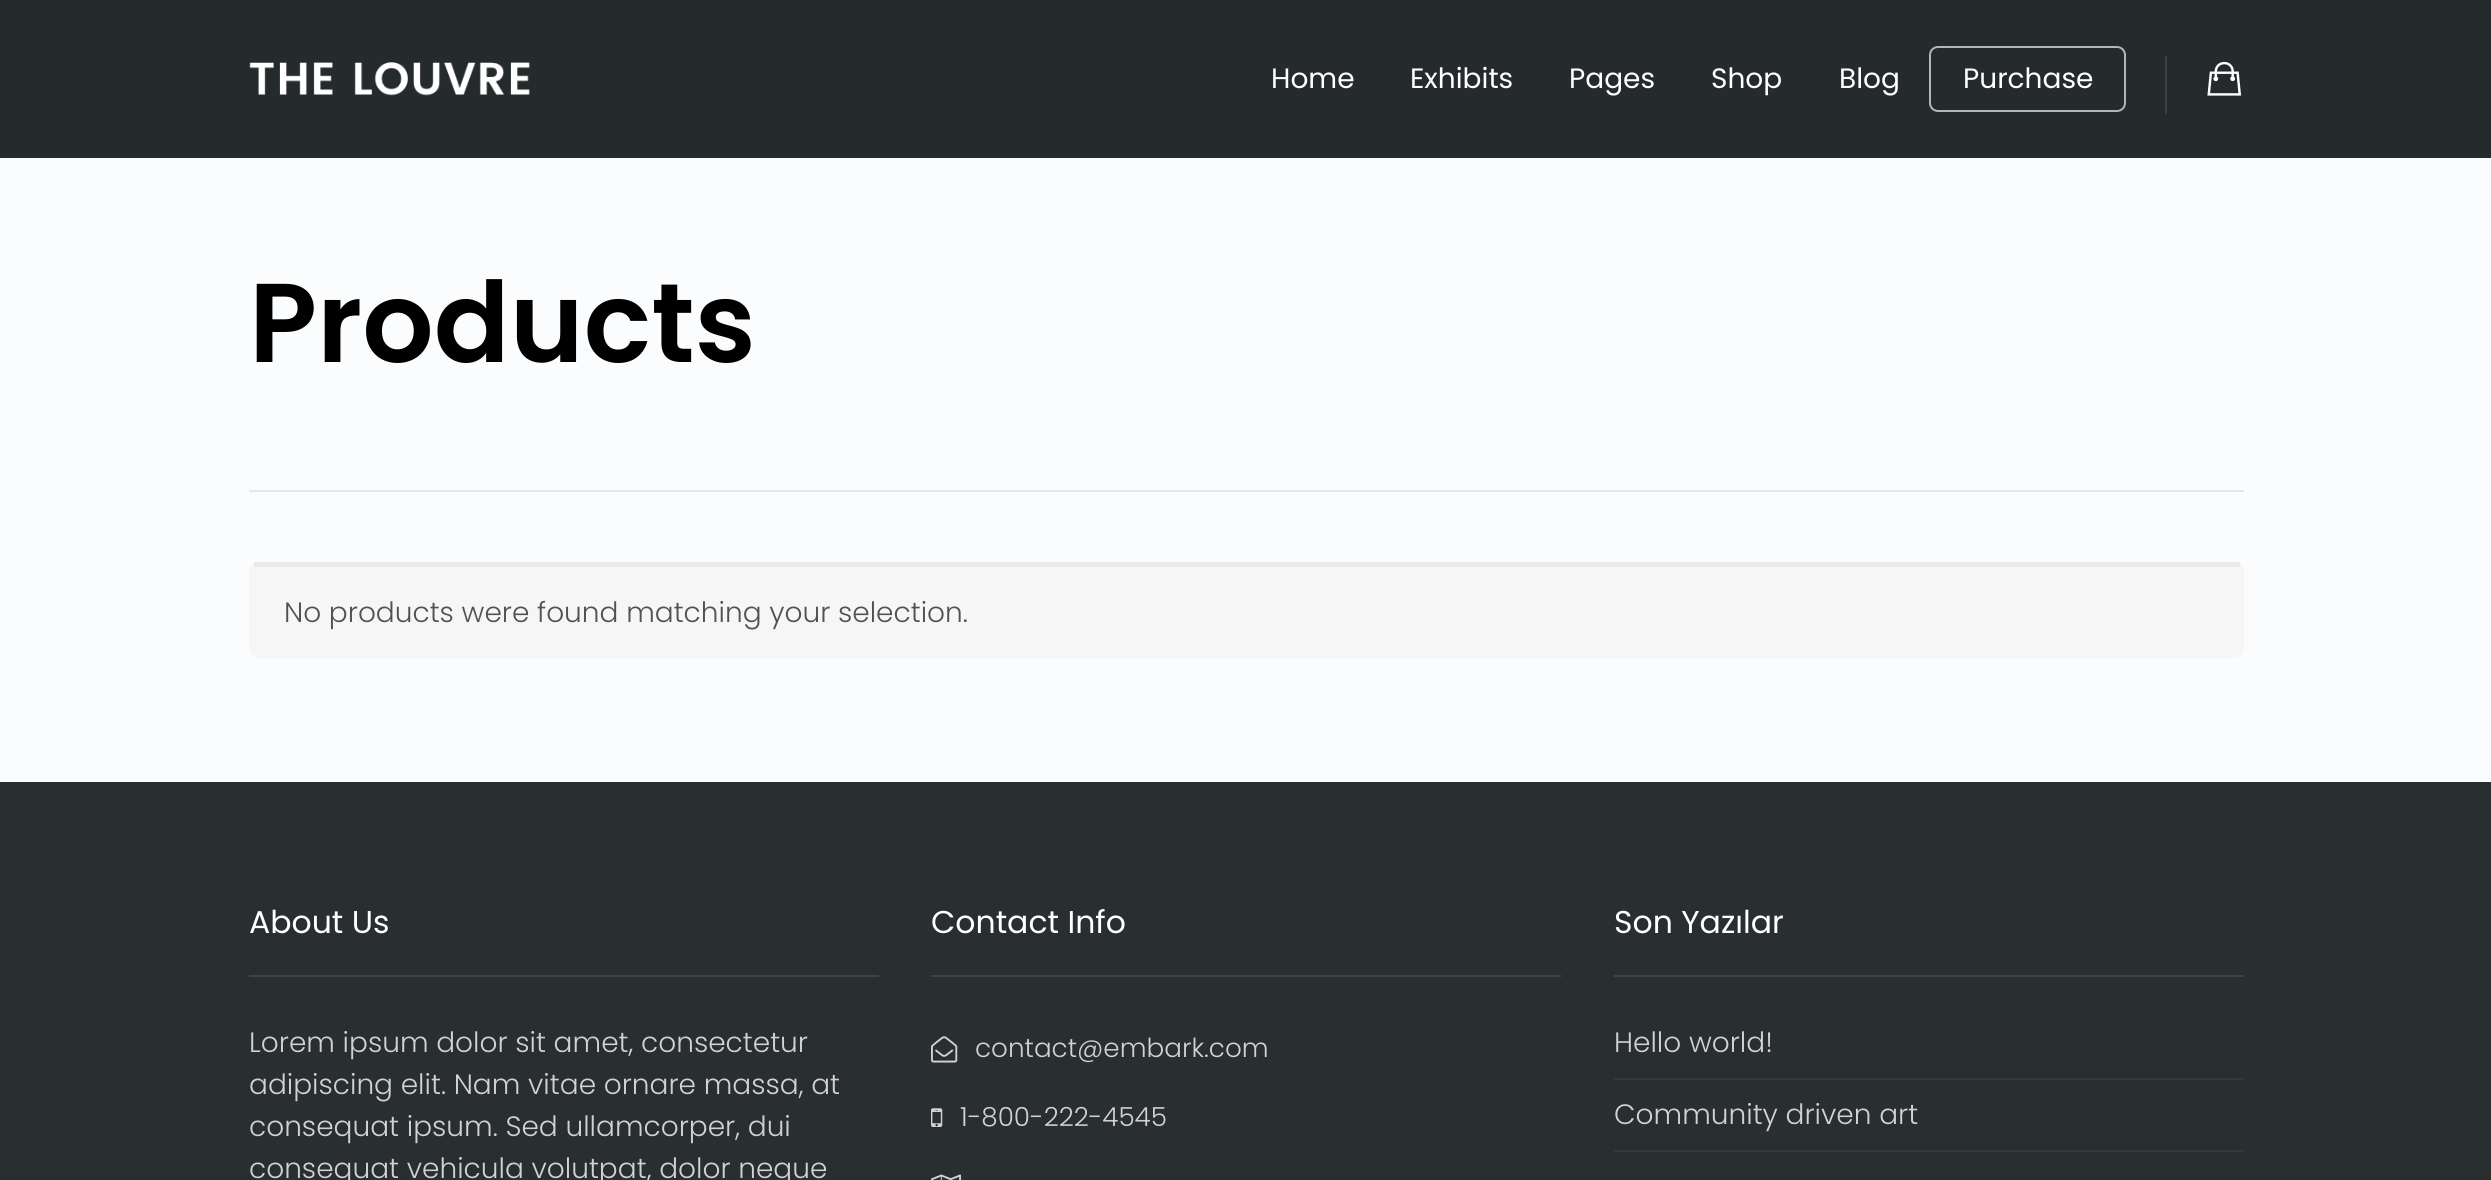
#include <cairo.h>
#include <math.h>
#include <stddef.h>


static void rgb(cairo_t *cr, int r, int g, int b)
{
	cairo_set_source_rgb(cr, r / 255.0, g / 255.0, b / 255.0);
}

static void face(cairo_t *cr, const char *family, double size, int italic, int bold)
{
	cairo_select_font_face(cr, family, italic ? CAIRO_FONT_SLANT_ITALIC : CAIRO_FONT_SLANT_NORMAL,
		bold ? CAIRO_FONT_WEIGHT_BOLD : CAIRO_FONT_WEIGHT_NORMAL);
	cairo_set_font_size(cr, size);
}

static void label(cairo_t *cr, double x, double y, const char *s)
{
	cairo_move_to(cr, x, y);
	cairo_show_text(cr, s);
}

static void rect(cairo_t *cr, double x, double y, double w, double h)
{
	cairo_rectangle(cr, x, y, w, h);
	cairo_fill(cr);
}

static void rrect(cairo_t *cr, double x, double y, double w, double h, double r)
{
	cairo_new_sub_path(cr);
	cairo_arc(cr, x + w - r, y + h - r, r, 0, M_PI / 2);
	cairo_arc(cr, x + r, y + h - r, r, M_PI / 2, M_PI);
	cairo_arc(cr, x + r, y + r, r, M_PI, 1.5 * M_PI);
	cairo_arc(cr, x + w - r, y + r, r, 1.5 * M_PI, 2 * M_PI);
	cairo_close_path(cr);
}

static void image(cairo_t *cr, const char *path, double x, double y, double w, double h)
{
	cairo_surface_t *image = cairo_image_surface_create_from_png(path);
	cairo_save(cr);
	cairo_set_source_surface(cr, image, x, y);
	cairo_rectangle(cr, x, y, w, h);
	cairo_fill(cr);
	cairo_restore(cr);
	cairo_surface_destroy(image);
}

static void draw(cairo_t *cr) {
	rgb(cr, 251, 252, 253);
	cairo_paint(cr);
	rgb(cr, 37, 43, 45);
	rect(cr, 0, 0, 2491, 158);
	image(cr, "image0.png", 249, 62, 281, 34);
	face(cr, "Poppins", 28, 0, 0);
	rgb(cr, 255, 255, 255);
	label(cr, 1271, 88, "Home");
	label(cr, 1410, 88, "Exhibits");
	label(cr, 1569, 88, "Pages");
	label(cr, 1711, 88, "Shop");
	label(cr, 1839, 88, "Blog");
	rrect(cr, 1930, 47, 195, 64, 8);
	rgb(cr, 179, 181, 182);
	cairo_stroke(cr);
	rgb(cr, 255, 255, 255);
	label(cr, 1963, 88, "Purchase");
	rgb(cr, 59, 64, 66);
	rect(cr, 2165, 56, 2, 58);
	image(cr, "image1.png", 2207, 61, 35, 35);
	rgb(cr, 230, 230, 230);
	rect(cr, 249, 490, 1995, 2);
	face(cr, "Poppins SemiBold", 112, 0, 0);
	rgb(cr, 0, 0, 0);
	label(cr, 249, 362, "Products");
	rgb(cr, 247, 246, 247);
	rrect(cr, 249, 562, 1995, 96, 9);
	cairo_fill(cr);
	rgb(cr, 235, 233, 235);
	rect(cr, 254, 562, 1986, 5);
	face(cr, "Poppins Light", 28, 0, 0);
	rgb(cr, 81, 81, 81);
	label(cr, 284, 622, "No products were found matching your selection.");
	rgb(cr, 41, 46, 49);
	rect(cr, 0, 782, 2491, 398);
	rgb(cr, 62, 67, 70);
	rect(cr, 249, 975, 630, 2);
	face(cr, "Poppins", 31.5, 0, 0);
	rgb(cr, 255, 255, 255);
	label(cr, 249, 933, "About Us");
	face(cr, "Poppins Light", 28, 0, 0);
	rgb(cr, 210, 210, 210);
	label(cr, 249, 1052, "Lorem ipsum dolor sit amet, consectetur");
	label(cr, 249, 1094, "adipiscing elit. Nam vitae ornare massa, at");
	label(cr, 249, 1136, "consequat ipsum. Sed ullamcorper, dui");
	label(cr, 249, 1178, "consequat vehicula volutpat, dolor neque");
	rgb(cr, 62, 67, 70);
	rect(cr, 931, 975, 630, 2);
	face(cr, "Poppins", 31.5, 0, 0);
	rgb(cr, 255, 255, 255);
	label(cr, 931, 933, "Contact Info");
	image(cr, "image2.png", 931, 1036, 27, 27);
	face(cr, "Poppins Light", 26.25, 0, 0);
	rgb(cr, 210, 210, 210);
	label(cr, 975, 1057, "contact@embark.com");
	image(cr, "image3.png", 931, 1108, 12, 19);
	label(cr, 960, 1126, "1-800-222-4545");
	image(cr, "image4.png", 931, 1174, 30, 6);
	rgb(cr, 62, 67, 70);
	rect(cr, 1614, 975, 630, 2);
	face(cr, "Poppins", 31.5, 0, 0);
	rgb(cr, 255, 255, 255);
	label(cr, 1614, 933, "Son Yazılar");
	rgb(cr, 52, 56, 59);
	rect(cr, 1614, 1078, 630, 2);
	face(cr, "Poppins Light", 28, 0, 0);
	rgb(cr, 210, 210, 210);
	label(cr, 1614, 1052, "Hello world!");
	rgb(cr, 52, 56, 59);
	rect(cr, 1614, 1150, 630, 2);
	rgb(cr, 210, 210, 210);
	label(cr, 1614, 1124, "Community driven art");
}

int main(void) {
	cairo_surface_t *surface = cairo_image_surface_create(CAIRO_FORMAT_RGB24, 2491, 1180);
	cairo_t *cr = cairo_create(surface);
	cairo_font_options_t *options = cairo_font_options_create();
	cairo_font_options_set_hint_metrics(options, CAIRO_HINT_METRICS_OFF);
	cairo_font_options_set_hint_style(options, CAIRO_HINT_STYLE_NONE);
	cairo_set_font_options(cr, options);
	cairo_set_miter_limit(cr, 4);
	draw(cr);
	cairo_surface_write_to_png(surface, "render.png");
	cairo_font_options_destroy(options);
	cairo_destroy(cr);
	cairo_surface_destroy(surface);
	return 0;
}
